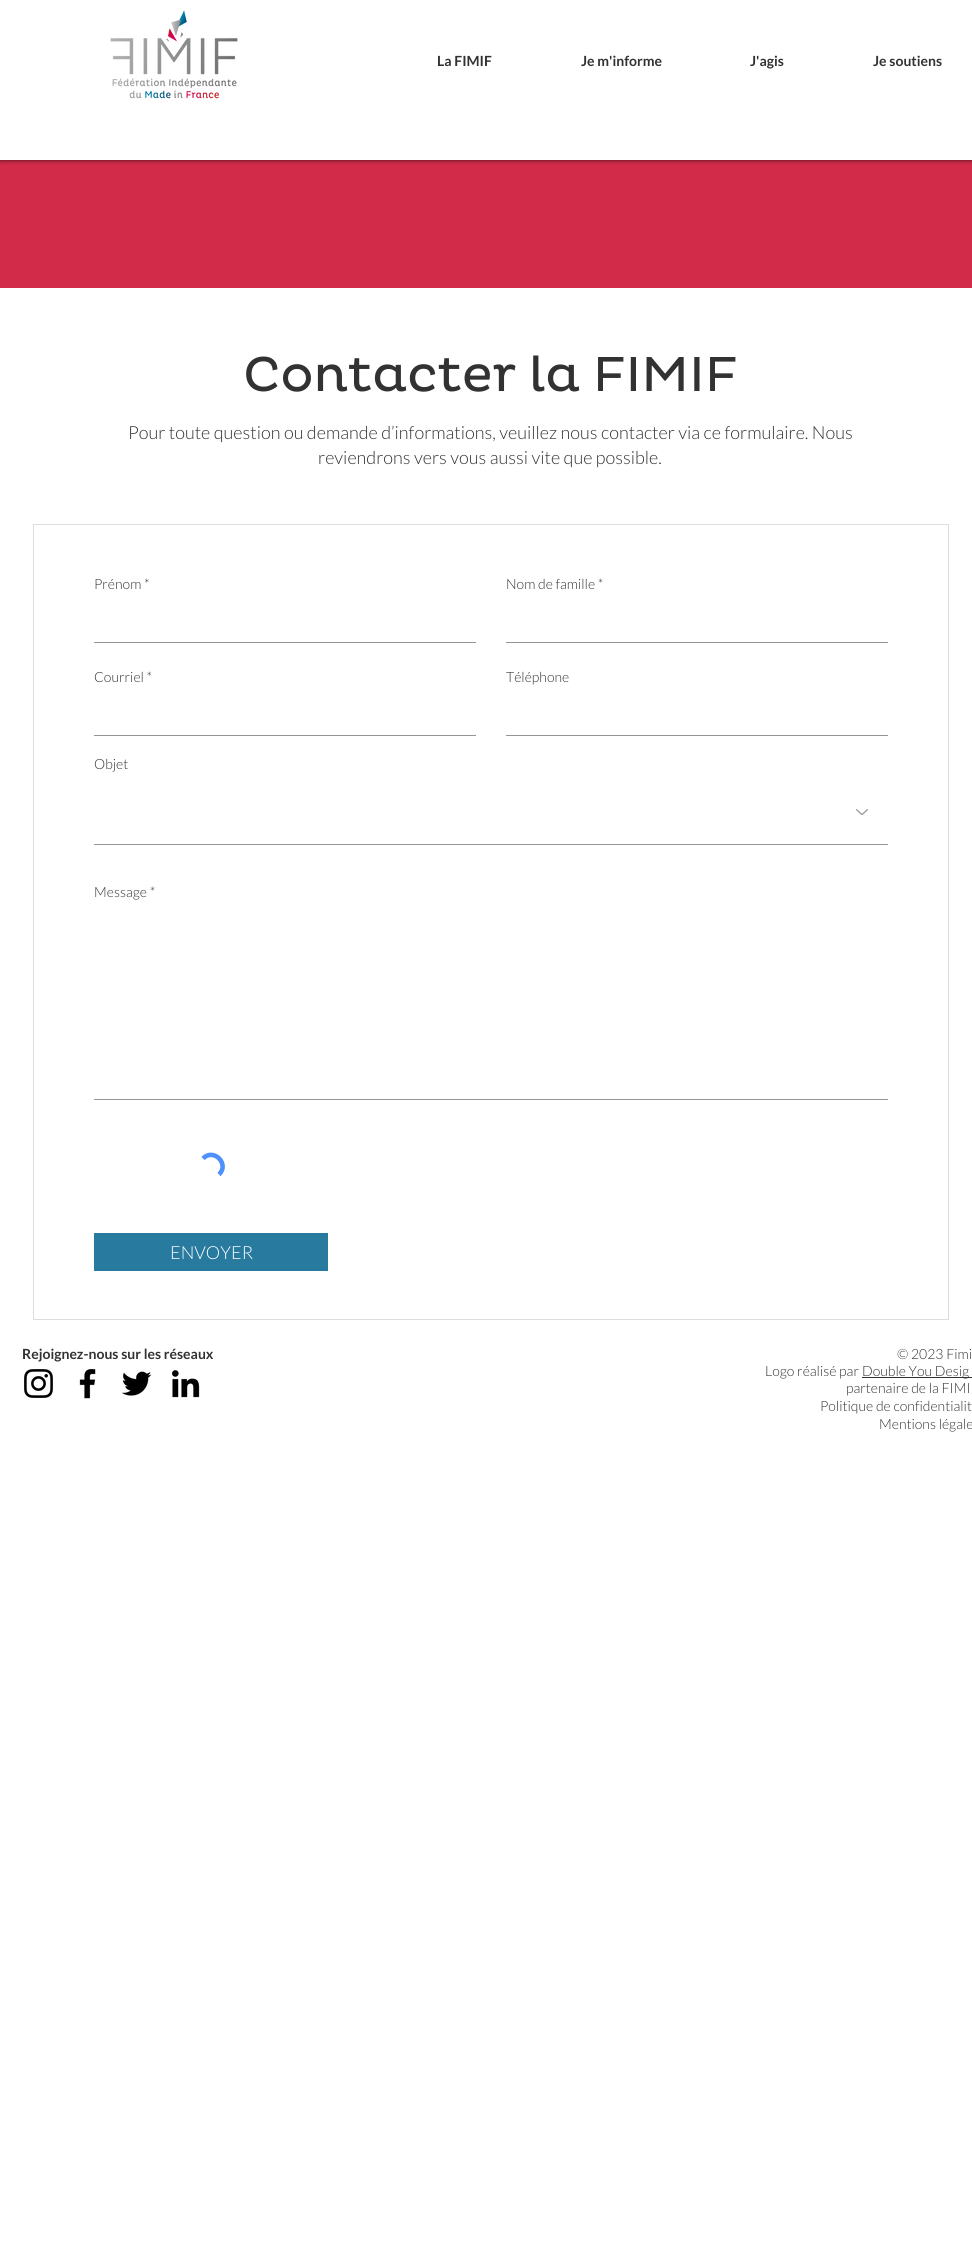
#include <cairo.h>
#include <math.h>
#include <stddef.h>


static void rgb(cairo_t *cr, int r, int g, int b)
{
	cairo_set_source_rgb(cr, r / 255.0, g / 255.0, b / 255.0);
}

static void face(cairo_t *cr, const char *family, double size, int italic, int bold)
{
	cairo_select_font_face(cr, family, italic ? CAIRO_FONT_SLANT_ITALIC : CAIRO_FONT_SLANT_NORMAL,
		bold ? CAIRO_FONT_WEIGHT_BOLD : CAIRO_FONT_WEIGHT_NORMAL);
	cairo_set_font_size(cr, size);
}

static void label(cairo_t *cr, double x, double y, const char *s)
{
	cairo_move_to(cr, x, y);
	cairo_show_text(cr, s);
}

static void rect(cairo_t *cr, double x, double y, double w, double h)
{
	cairo_rectangle(cr, x, y, w, h);
	cairo_fill(cr);
}

static void rrect(cairo_t *cr, double x, double y, double w, double h, double r)
{
	cairo_new_sub_path(cr);
	cairo_arc(cr, x + w - r, y + h - r, r, 0, M_PI / 2);
	cairo_arc(cr, x + r, y + h - r, r, M_PI / 2, M_PI);
	cairo_arc(cr, x + r, y + r, r, M_PI, 1.5 * M_PI);
	cairo_arc(cr, x + w - r, y + r, r, 1.5 * M_PI, 2 * M_PI);
	cairo_close_path(cr);
}

static void soft_shadow(cairo_t *cr, double x, double y, double w, double h, double r, double blur, double alpha)
{
	cairo_push_group_with_content(cr, CAIRO_CONTENT_ALPHA);
	cairo_set_operator(cr, CAIRO_OPERATOR_SOURCE);
	for (int i = 15; i >= -15 && fmin(w, h) + blur * i / 3 > 0; i -= 2) {
		double e = blur * i / 6;
		cairo_set_source_rgba(cr, 0, 0, 0, alpha * erfc((i - 1) / 8.5) / 2);
		rrect(cr, x - e, y - e, w + 2 * e, h + 2 * e, fmax(0, fmin(r + e + blur * .6, fmin(w, h) / 2 + e)));
		cairo_fill(cr);
	}
	cairo_pattern_t *soft = cairo_pop_group(cr);
	cairo_mask(cr, soft);
	cairo_pattern_destroy(soft);
}

static void image(cairo_t *cr, const char *path, double x, double y, double w, double h)
{
	cairo_surface_t *image = cairo_image_surface_create_from_png(path);
	cairo_save(cr);
	cairo_set_source_surface(cr, image, x, y);
	cairo_rectangle(cr, x, y, w, h);
	cairo_fill(cr);
	cairo_restore(cr);
	cairo_surface_destroy(image);
}

static void draw(cairo_t *cr) {
	rgb(cr, 255, 255, 255);
	cairo_paint(cr);
	rgb(cr, 209, 43, 73);
	rect(cr, 0, 160, 972, 128);
	cairo_save(cr);
	cairo_rectangle(cr, 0, 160, 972, 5);
	cairo_clip(cr);
	rgb(cr, 0, 0, 0);
	soft_shadow(cr, 0, 0, 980, 160, 0, 2.5, 0.7);
	cairo_restore(cr);
	image(cr, "image0.png", 110, 10, 128, 89);
	face(cr, "Lato", 14, 0, 1);
	rgb(cr, 50, 50, 50);
	label(cr, 437, 66, "La FIMIF");
	label(cr, 581, 66, "Je m'informe");
	label(cr, 750, 66, "J'agis");
	label(cr, 873, 66, "Je soutiens");
	face(cr, "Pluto", 50, 0, 0);
	label(cr, 243, 391, "Contacter la FIMIF");
	face(cr, "Lato Light", 18, 0, 0);
	label(cr, 128, 439, "Pour toute question ou demande d’informations, veuillez nous contacter via ce formulaire. Nous");
	label(cr, 318, 464, "reviendrons vers vous aussi vite que possible.");
	cairo_rectangle(cr, 33.5, 524.5, 915, 795);
	rgb(cr, 221, 221, 221);
	cairo_set_line_width(cr, 1);
	cairo_stroke(cr);
	face(cr, "Lato Light", 14, 0, 0);
	rgb(cr, 50, 50, 50);
	label(cr, 94, 589, "Prénom *");
	rgb(cr, 149, 149, 149);
	rect(cr, 94, 642, 382, 1);
	rgb(cr, 50, 50, 50);
	label(cr, 506, 589, "Nom de famille *");
	rgb(cr, 149, 149, 149);
	rect(cr, 506, 642, 382, 1);
	rgb(cr, 50, 50, 50);
	label(cr, 94, 682, "Courriel *");
	rgb(cr, 149, 149, 149);
	rect(cr, 94, 735, 382, 1);
	rgb(cr, 50, 50, 50);
	label(cr, 506, 682, "Téléphone");
	rgb(cr, 149, 149, 149);
	rect(cr, 506, 735, 382, 1);
	rgb(cr, 50, 50, 50);
	label(cr, 94, 769, "Objet");
	image(cr, "image1.png", 856, 809, 12, 6);
	rgb(cr, 149, 149, 149);
	rect(cr, 94, 844, 794, 1);
	rgb(cr, 50, 50, 50);
	label(cr, 94, 897, "Message *");
	rgb(cr, 149, 149, 149);
	rect(cr, 94, 1099, 794, 1);
	cairo_new_path(cr);
	cairo_move_to(cr, 203, 1158.5);
	cairo_curve_to(cr, 213.5, 1147.5, 230, 1164, 219, 1174.5);
	rgb(cr, 77, 144, 254);
	cairo_set_line_width(cr, 4.6);
	cairo_stroke(cr);
	rgb(cr, 40, 123, 159);
	rect(cr, 94, 1233, 234, 38);
	face(cr, "Lato Light", 18, 0, 0);
	rgb(cr, 255, 255, 255);
	label(cr, 170, 1259, "ENVOYER");
	face(cr, "Lato", 14, 0, 1);
	rgb(cr, 50, 50, 50);
	label(cr, 22, 1359, "Rejoignez-nous sur les réseaux");
	image(cr, "image2.png", 24, 1369, 29, 29);
	image(cr, "image3.png", 79, 1369, 17, 30);
	image(cr, "image4.png", 122, 1371, 30, 25);
	image(cr, "image5.png", 171, 1370, 29, 28);
	face(cr, "Lato Light", 14, 0, 0);
	label(cr, 897, 1359, "© 2023 Fimi");
	label(cr, 765, 1376, "Logo réalisé par");
	rect(cr, 862, 1377, 110, 1);
	label(cr, 862, 1376, "Double You Desig");
	label(cr, 846, 1393, "partenaire de la FIMI");
	label(cr, 820, 1411, "Politique de confidentialit");
	label(cr, 879, 1429, "Mentions légale");
}

int main(void) {
	cairo_surface_t *surface = cairo_image_surface_create(CAIRO_FORMAT_RGB24, 972, 2241);
	cairo_t *cr = cairo_create(surface);
	cairo_font_options_t *options = cairo_font_options_create();
	cairo_font_options_set_hint_metrics(options, CAIRO_HINT_METRICS_OFF);
	cairo_font_options_set_hint_style(options, CAIRO_HINT_STYLE_NONE);
	cairo_set_font_options(cr, options);
	cairo_set_miter_limit(cr, 4);
	draw(cr);
	cairo_surface_write_to_png(surface, "render.png");
	cairo_font_options_destroy(options);
	cairo_destroy(cr);
	cairo_surface_destroy(surface);
	return 0;
}
